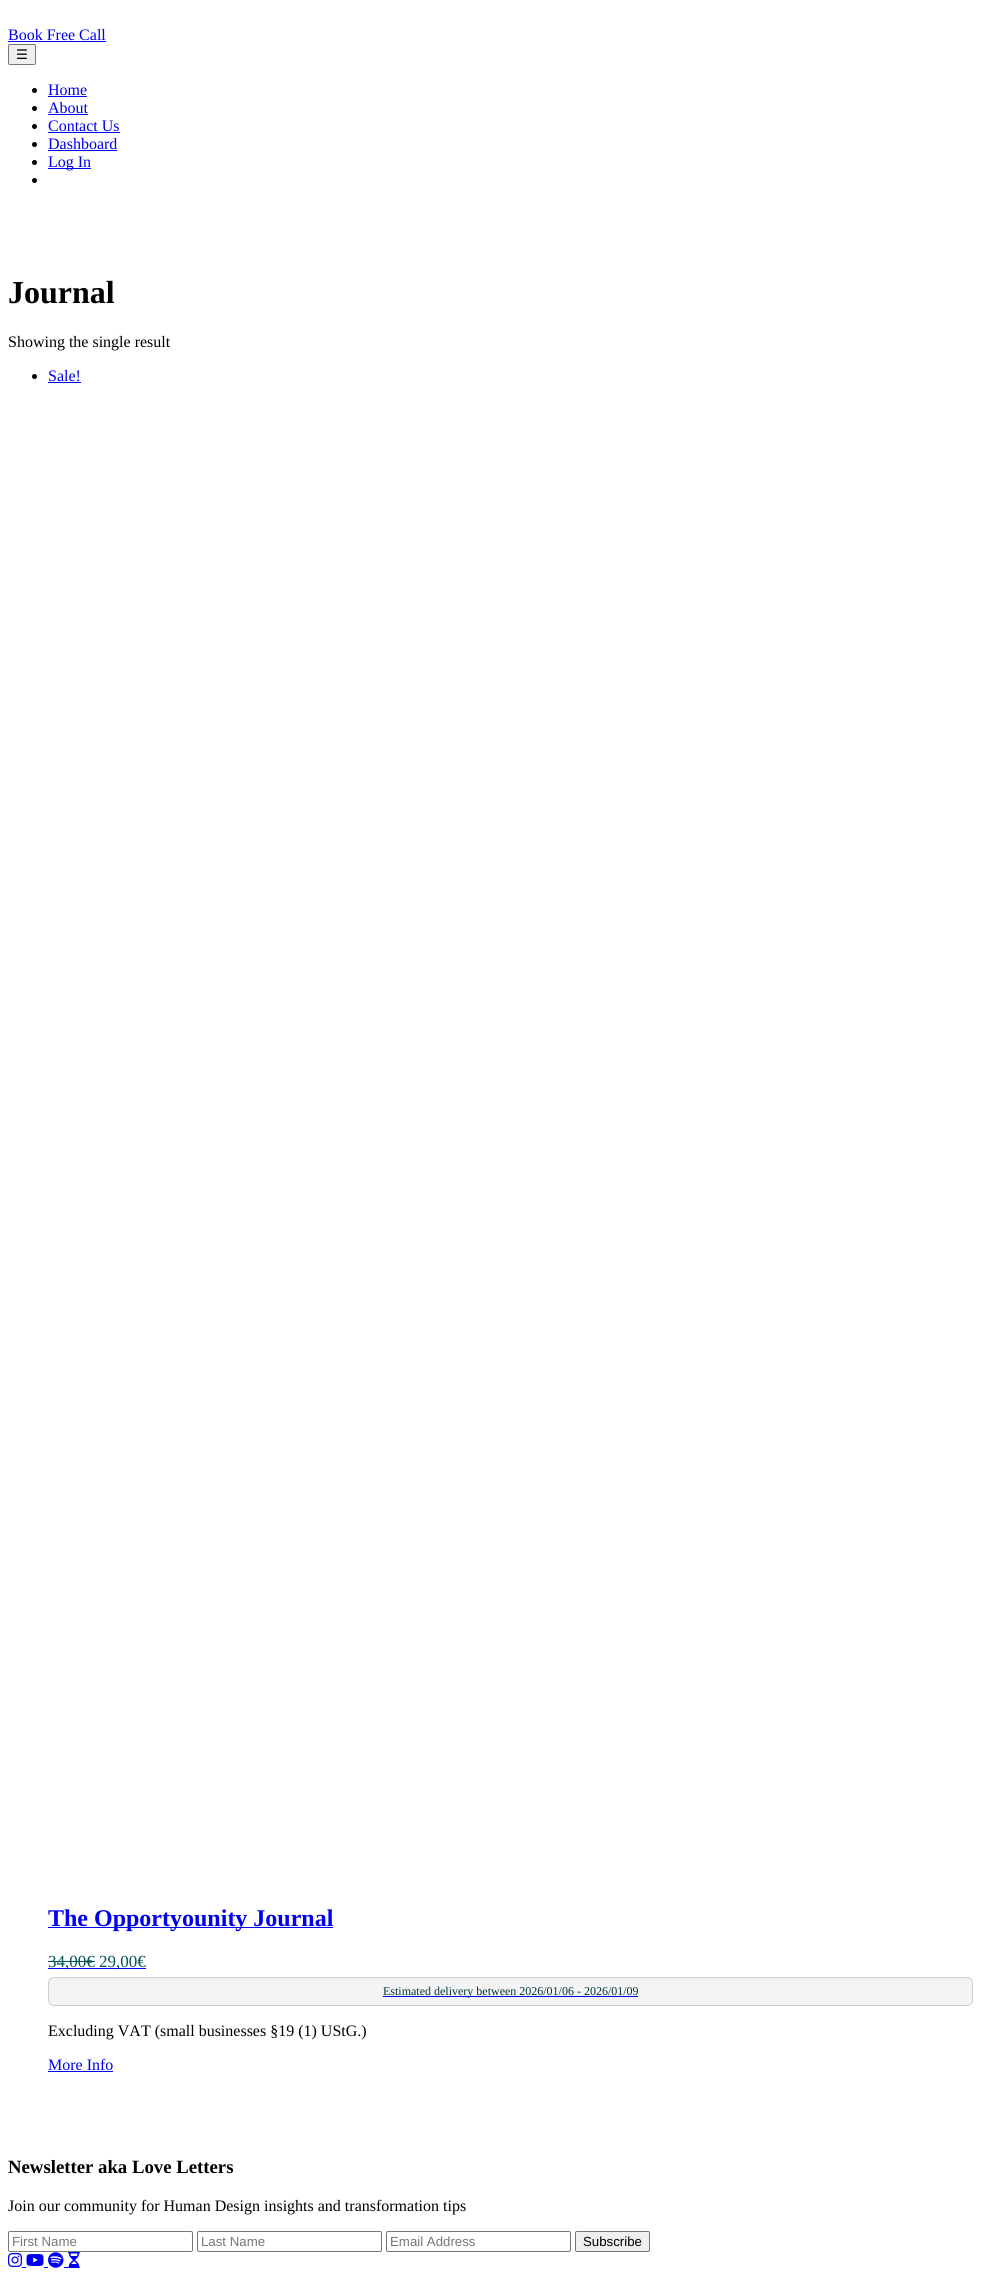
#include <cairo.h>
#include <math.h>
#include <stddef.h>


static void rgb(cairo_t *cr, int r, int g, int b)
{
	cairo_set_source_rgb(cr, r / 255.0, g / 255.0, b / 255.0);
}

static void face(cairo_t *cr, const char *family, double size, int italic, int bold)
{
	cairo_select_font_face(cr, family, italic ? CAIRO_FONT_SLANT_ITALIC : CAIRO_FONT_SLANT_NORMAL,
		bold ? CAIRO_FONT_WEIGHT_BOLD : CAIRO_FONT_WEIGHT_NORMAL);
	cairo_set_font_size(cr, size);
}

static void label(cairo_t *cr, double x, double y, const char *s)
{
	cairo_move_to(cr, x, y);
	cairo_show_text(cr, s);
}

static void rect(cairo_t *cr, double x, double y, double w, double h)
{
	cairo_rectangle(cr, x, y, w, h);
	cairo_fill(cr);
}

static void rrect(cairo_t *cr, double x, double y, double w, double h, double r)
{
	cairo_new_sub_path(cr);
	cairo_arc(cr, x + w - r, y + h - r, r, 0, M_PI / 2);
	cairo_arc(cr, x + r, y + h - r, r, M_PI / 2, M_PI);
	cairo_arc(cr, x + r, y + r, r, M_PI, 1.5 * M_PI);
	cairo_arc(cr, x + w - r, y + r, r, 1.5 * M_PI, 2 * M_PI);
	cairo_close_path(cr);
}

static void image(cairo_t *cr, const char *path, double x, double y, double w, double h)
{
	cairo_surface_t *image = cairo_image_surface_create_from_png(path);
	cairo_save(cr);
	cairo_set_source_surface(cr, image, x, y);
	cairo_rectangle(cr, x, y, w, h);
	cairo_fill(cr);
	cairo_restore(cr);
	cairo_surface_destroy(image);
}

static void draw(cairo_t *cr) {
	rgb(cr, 255, 255, 255);
	cairo_paint(cr);
	face(cr, "Liberation Serif", 16, 0, 0);
	rgb(cr, 0, 0, 238);
	label(cr, 8, 40, "Book Free Call");
	rect(cr, 8, 41, 98, 1);
	rgb(cr, 239, 239, 239);
	rrect(cr, 8.5, 44.5, 27, 20, 1.5);
	cairo_fill_preserve(cr);
	rgb(cr, 118, 118, 118);
	cairo_set_line_width(cr, 1);
	cairo_stroke(cr);
	face(cr, "DejaVu Sans", 13.25, 0, 0);
	rgb(cr, 0, 0, 0);
	label(cr, 16, 59, "☰");
	cairo_new_path(cr);
	cairo_arc(cr, 34.5, 90.5, 2.5, 0, 2 * M_PI);
	cairo_fill(cr);
	face(cr, "Liberation Serif", 16, 0, 0);
	rgb(cr, 0, 0, 238);
	label(cr, 48, 95, "Home");
	rect(cr, 48, 96, 39, 1);
	rgb(cr, 0, 0, 0);
	cairo_new_path(cr);
	cairo_arc(cr, 34.5, 108.5, 2.5, 0, 2 * M_PI);
	cairo_fill(cr);
	rgb(cr, 0, 0, 238);
	label(cr, 48, 113, "About");
	rect(cr, 48, 114, 40, 1);
	rgb(cr, 0, 0, 0);
	cairo_new_path(cr);
	cairo_arc(cr, 34.5, 126.5, 2.5, 0, 2 * M_PI);
	cairo_fill(cr);
	rgb(cr, 0, 0, 238);
	label(cr, 48, 131, "Contact Us");
	rect(cr, 48, 132, 72, 1);
	rgb(cr, 0, 0, 0);
	cairo_new_path(cr);
	cairo_arc(cr, 34.5, 144.5, 2.5, 0, 2 * M_PI);
	cairo_fill(cr);
	rgb(cr, 0, 0, 238);
	label(cr, 48, 149, "Dashboard");
	rect(cr, 48, 150, 69, 1);
	rgb(cr, 0, 0, 0);
	cairo_new_path(cr);
	cairo_arc(cr, 34.5, 162.5, 2.5, 0, 2 * M_PI);
	cairo_fill(cr);
	rgb(cr, 0, 0, 238);
	rect(cr, 48, 168, 43, 1);
	label(cr, 48, 167, "Log In");
	rgb(cr, 0, 0, 0);
	cairo_new_path(cr);
	cairo_arc(cr, 34.5, 180.5, 2.5, 0, 2 * M_PI);
	cairo_fill(cr);
	face(cr, "Liberation Serif", 32, 0, 1);
	label(cr, 8, 303, "Journal");
	face(cr, "Liberation Serif", 16, 0, 0);
	label(cr, 8, 347, "Showing the single result");
	cairo_new_path(cr);
	cairo_arc(cr, 34.5, 376.5, 2.5, 0, 2 * M_PI);
	cairo_fill(cr);
	rgb(cr, 0, 0, 238);
	label(cr, 48, 381, "Sale!");
	rect(cr, 48, 382, 33, 1);
	rect(cr, 48, 1927, 285, 1);
	face(cr, "Liberation Serif", 24, 0, 1);
	label(cr, 48, 1926, "The Opportyounity Journal");
	rect(cr, 48, 1968, 98, 1);
	face(cr, "Liberation Serif", 17, 0, 0);
	rgb(cr, 0, 84, 84);
	label(cr, 48, 1967, "34,00€ 29,00€");
	rect(cr, 48, 1961, 47, 1);
	rgb(cr, 244, 244, 244);
	rrect(cr, 48.5, 1977.5, 924, 28, 5.5);
	cairo_fill_preserve(cr);
	rgb(cr, 204, 204, 204);
	cairo_stroke(cr);
	rgb(cr, 0, 0, 238);
	rect(cr, 383, 1996, 255, 1);
	face(cr, "Liberation Serif", 12, 0, 0);
	rgb(cr, 0, 54, 54);
	label(cr, 383, 1995, "Estimated delivery between 2026/01/06 - 2026/01/09");
	face(cr, "Liberation Serif", 16, 0, 0);
	rgb(cr, 0, 0, 0);
	label(cr, 48, 2036, "Excluding VAT (small businesses §19 (1) UStG.)");
	rgb(cr, 0, 0, 238);
	label(cr, 48, 2070, "More Info");
	rect(cr, 48, 2071, 65, 1);
	face(cr, "Liberation Serif", 18.75, 0, 1);
	rgb(cr, 0, 0, 0);
	label(cr, 8, 2173, "Newsletter aka Love Letters");
	face(cr, "Liberation Serif", 16, 0, 0);
	label(cr, 8, 2211, "Join our community for Human Design insights and transformation tips");
	rrect(cr, 8.5, 2231.5, 184, 20, 1.5);
	rgb(cr, 118, 118, 118);
	cairo_stroke(cr);
	face(cr, "Liberation Sans", 13.25, 0, 0);
	rgb(cr, 117, 117, 117);
	label(cr, 12, 2246, "First Name");
	rrect(cr, 197.5, 2231.5, 184, 20, 1.5);
	rgb(cr, 118, 118, 118);
	cairo_stroke(cr);
	rgb(cr, 117, 117, 117);
	label(cr, 201, 2246, "Last Name");
	rrect(cr, 386.5, 2231.5, 184, 20, 1.5);
	rgb(cr, 118, 118, 118);
	cairo_stroke(cr);
	rgb(cr, 117, 117, 117);
	label(cr, 390, 2246, "Email Address");
	rgb(cr, 239, 239, 239);
	rrect(cr, 575.5, 2231.5, 74, 20, 1.5);
	cairo_fill_preserve(cr);
	rgb(cr, 118, 118, 118);
	cairo_stroke(cr);
	rgb(cr, 0, 0, 0);
	label(cr, 583, 2246, "Subscribe");
	image(cr, "image0.png", 8, 2253, 14, 14);
	rgb(cr, 0, 0, 238);
	rect(cr, 22, 2267, 4, 1);
	image(cr, "image1.png", 26, 2254, 18, 12);
	rect(cr, 44, 2267, 4, 1);
	image(cr, "image2.png", 48, 2252, 16, 16);
	rect(cr, 64, 2267, 4, 1);
	image(cr, "image3.png", 68, 2252, 12, 16);
}

int main(void) {
	cairo_surface_t *surface = cairo_image_surface_create(CAIRO_FORMAT_RGB24, 981, 2272);
	cairo_t *cr = cairo_create(surface);
	cairo_font_options_t *options = cairo_font_options_create();
	cairo_font_options_set_hint_metrics(options, CAIRO_HINT_METRICS_OFF);
	cairo_font_options_set_hint_style(options, CAIRO_HINT_STYLE_NONE);
	cairo_set_font_options(cr, options);
	cairo_set_miter_limit(cr, 4);
	draw(cr);
	cairo_surface_write_to_png(surface, "render.png");
	cairo_font_options_destroy(options);
	cairo_destroy(cr);
	cairo_surface_destroy(surface);
	return 0;
}
